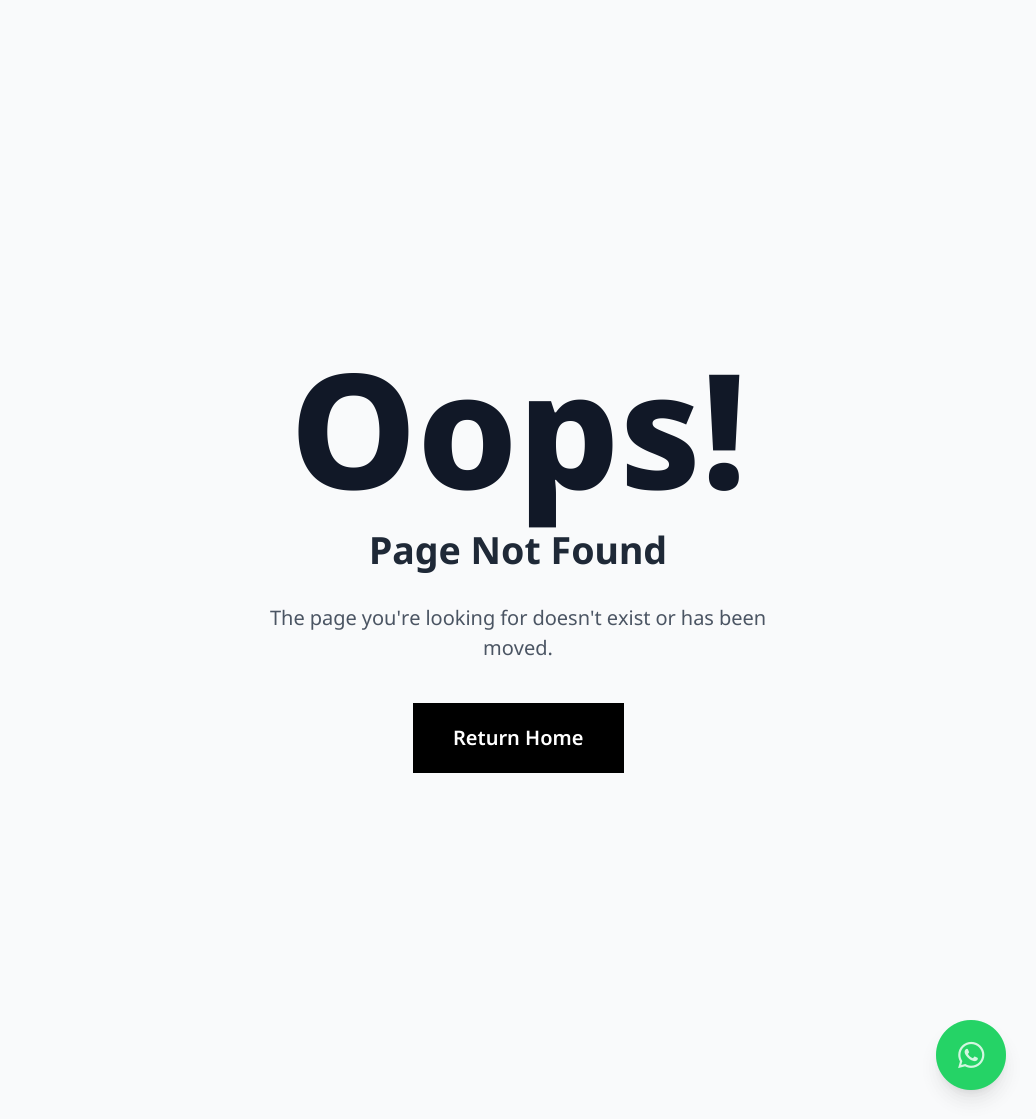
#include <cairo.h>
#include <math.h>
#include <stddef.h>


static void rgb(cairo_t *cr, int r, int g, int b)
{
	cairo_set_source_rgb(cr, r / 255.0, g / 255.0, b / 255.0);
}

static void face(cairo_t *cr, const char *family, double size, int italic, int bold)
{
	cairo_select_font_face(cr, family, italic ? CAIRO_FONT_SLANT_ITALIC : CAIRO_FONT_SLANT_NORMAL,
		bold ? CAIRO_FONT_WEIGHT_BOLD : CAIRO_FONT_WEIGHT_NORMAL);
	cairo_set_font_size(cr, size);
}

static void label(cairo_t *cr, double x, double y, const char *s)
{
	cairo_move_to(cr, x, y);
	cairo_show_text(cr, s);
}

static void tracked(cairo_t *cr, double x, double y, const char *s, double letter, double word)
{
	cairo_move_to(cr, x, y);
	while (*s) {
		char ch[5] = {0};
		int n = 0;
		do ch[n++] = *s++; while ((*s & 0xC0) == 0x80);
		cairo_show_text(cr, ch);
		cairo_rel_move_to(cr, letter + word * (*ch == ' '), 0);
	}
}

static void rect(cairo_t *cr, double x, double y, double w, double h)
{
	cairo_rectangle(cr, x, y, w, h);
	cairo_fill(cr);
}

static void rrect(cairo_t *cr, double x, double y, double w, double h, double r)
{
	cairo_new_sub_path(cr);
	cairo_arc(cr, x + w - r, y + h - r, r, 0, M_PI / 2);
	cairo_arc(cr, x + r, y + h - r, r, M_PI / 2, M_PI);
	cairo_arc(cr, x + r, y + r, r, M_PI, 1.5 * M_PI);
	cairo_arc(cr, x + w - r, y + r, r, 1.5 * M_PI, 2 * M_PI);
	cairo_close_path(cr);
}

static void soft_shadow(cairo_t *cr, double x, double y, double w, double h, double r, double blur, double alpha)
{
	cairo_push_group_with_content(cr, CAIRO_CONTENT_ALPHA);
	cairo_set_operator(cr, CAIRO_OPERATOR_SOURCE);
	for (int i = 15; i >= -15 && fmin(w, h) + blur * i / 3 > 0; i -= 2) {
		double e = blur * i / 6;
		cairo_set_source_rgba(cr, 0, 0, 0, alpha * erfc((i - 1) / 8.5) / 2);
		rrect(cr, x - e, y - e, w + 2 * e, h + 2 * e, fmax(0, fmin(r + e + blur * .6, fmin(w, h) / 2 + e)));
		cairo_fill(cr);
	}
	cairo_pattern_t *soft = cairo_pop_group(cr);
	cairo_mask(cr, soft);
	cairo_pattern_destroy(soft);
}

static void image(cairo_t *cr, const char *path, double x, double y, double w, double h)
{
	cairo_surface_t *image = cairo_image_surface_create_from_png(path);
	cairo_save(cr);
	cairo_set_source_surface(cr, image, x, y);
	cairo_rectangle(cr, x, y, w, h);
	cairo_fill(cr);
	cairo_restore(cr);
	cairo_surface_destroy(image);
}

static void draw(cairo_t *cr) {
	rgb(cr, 249, 250, 251);
	cairo_paint(cr);
	face(cr, "Noto Sans ExtraBold", 160, 0, 0);
	rgb(cr, 17, 24, 39);
	label(cr, 290, 489, "Oops!");
	face(cr, "Noto Sans", 37.5, 0, 1);
	rgb(cr, 31, 41, 55);
	label(cr, 369, 564, "Page Not Found");
	face(cr, "Noto Sans", 20, 0, 0);
	rgb(cr, 75, 85, 99);
	tracked(cr, 270, 625, "The page you're looking for doesn't exist or has been", 0, -0.25);
	label(cr, 483, 655, "moved.");
	rgb(cr, 0, 0, 0);
	rect(cr, 413, 703, 211, 70);
	face(cr, "Noto Sans SemiBold", 20, 0, 0);
	rgb(cr, 255, 255, 255);
	label(cr, 453, 745, "Return Home");
	rgb(cr, 0, 0, 0);
	soft_shadow(cr, 941, 1030, 60, 60, 30, 4, 0.1);
	soft_shadow(cr, 940, 1036, 63, 63, 31.5, 9.5, 0.1);
	rgb(cr, 37, 211, 102);
	cairo_arc(cr, 971, 1055, 35, 0, 2 * M_PI);
	cairo_fill(cr);
	image(cr, "image0.png", 958, 1041, 27, 28);
	cairo_set_source_rgba(cr, 0.145, 0.827, 0.4, 0.2);
	cairo_arc(cr, 971, 1055, 35, 0, 2 * M_PI);
	cairo_fill(cr);
}

int main(void) {
	cairo_surface_t *surface = cairo_image_surface_create(CAIRO_FORMAT_RGB24, 1036, 1119);
	cairo_t *cr = cairo_create(surface);
	cairo_font_options_t *options = cairo_font_options_create();
	cairo_font_options_set_hint_metrics(options, CAIRO_HINT_METRICS_OFF);
	cairo_font_options_set_hint_style(options, CAIRO_HINT_STYLE_NONE);
	cairo_set_font_options(cr, options);
	cairo_set_miter_limit(cr, 4);
	draw(cr);
	cairo_surface_write_to_png(surface, "render.png");
	cairo_font_options_destroy(options);
	cairo_destroy(cr);
	cairo_surface_destroy(surface);
	return 0;
}
